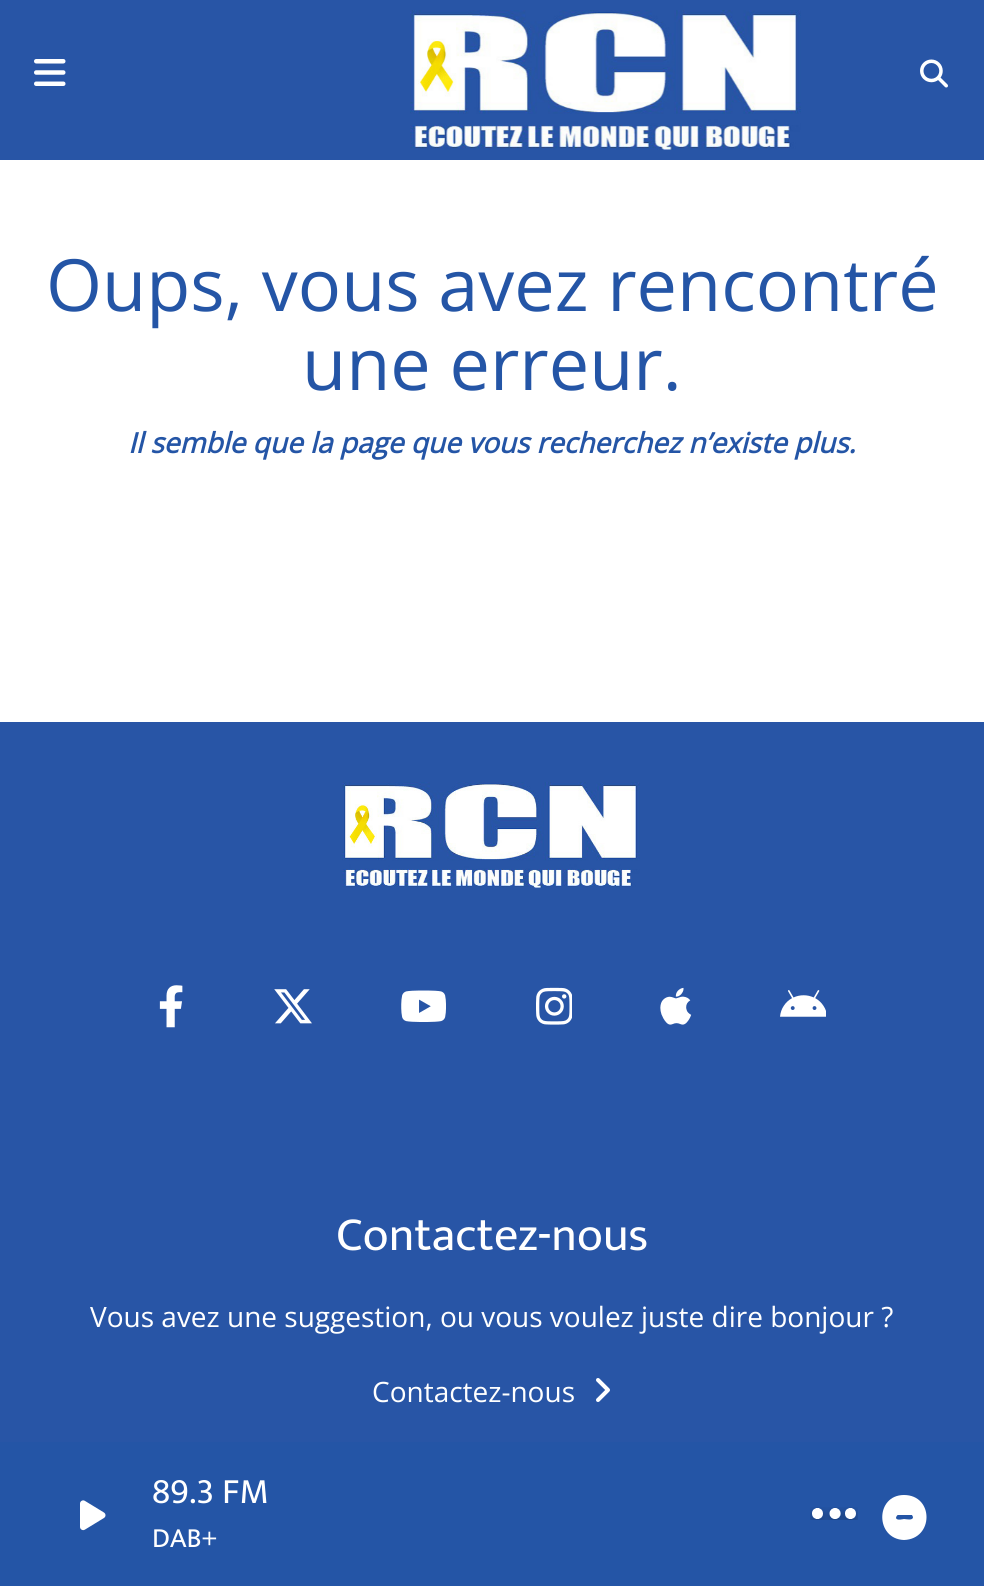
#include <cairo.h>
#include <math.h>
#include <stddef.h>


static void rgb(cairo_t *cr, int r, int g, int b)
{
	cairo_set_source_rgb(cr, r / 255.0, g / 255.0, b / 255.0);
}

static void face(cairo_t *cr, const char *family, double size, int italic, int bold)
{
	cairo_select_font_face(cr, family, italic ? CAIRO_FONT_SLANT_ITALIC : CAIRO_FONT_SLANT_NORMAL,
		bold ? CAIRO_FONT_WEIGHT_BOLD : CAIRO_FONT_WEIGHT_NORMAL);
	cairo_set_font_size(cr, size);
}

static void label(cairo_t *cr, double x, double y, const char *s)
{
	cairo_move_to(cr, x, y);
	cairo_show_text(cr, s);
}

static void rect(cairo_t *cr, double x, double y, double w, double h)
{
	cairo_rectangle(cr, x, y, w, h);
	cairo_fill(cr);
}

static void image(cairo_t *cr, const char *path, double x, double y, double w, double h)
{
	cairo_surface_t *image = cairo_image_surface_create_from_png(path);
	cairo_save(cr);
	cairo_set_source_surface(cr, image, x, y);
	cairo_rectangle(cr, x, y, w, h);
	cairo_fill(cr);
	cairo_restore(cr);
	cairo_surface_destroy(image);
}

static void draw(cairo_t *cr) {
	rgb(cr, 255, 255, 255);
	cairo_paint(cr);
	face(cr, "Open Sans", 72, 0, 0);
	rgb(cr, 36, 85, 166);
	label(cr, 46, 311, "Oups, vous avez rencontré");
	label(cr, 302, 390, "une erreur.");
	face(cr, "Open Sans", 28, 1, 1);
	label(cr, 128, 453, "Il semble que la page que vous recherchez n’existe plus.");
	rgb(cr, 40, 85, 166);
	rect(cr, 0, 722, 984, 720);
	image(cr, "image0.png", 342, 782, 298, 106);
	image(cr, "image1.png", 159, 985, 24, 43);
	image(cr, "image2.png", 274, 989, 38, 35);
	image(cr, "image3.png", 401, 990, 45, 32);
	image(cr, "image4.png", 536, 987, 36, 38);
	image(cr, "image5.png", 660, 987, 32, 38);
	image(cr, "image6.png", 780, 990, 46, 27);
	face(cr, "Mukta", 48, 0, 0);
	rgb(cr, 255, 255, 255);
	label(cr, 336, 1250, "Contactez-nous");
	face(cr, "Open Sans", 28, 0, 0);
	label(cr, 90, 1327, "Vous avez une suggestion, ou vous voulez juste dire bonjour ?");
	label(cr, 372, 1402, "Contactez-nous");
	image(cr, "image7.png", 596, 1378, 14, 24);
	rgb(cr, 40, 85, 166);
	rect(cr, 0, 0, 984, 160);
	image(cr, "image8.png", 34, 59, 32, 27);
	image(cr, "image9.png", 410, 10, 391, 140);
	image(cr, "image10.png", 920, 59, 28, 29);
	rgb(cr, 36, 85, 166);
	rect(cr, 0, 1442, 984, 144);
	image(cr, "image11.png", 80, 1500, 26, 31);
	face(cr, "Mukta", 36, 0, 0);
	rgb(cr, 255, 255, 255);
	label(cr, 152, 1503, "89.3 FM");
	face(cr, "Mukta", 28, 0, 0);
	label(cr, 152, 1547, "DAB+");
	image(cr, "image12.png", 810, 1507, 48, 13);
	cairo_new_path(cr);
	cairo_move_to(cr, 904, 1540);
	cairo_curve_to(cr, 934, 1539, 934, 1495, 904, 1495);
	cairo_curve_to(cr, 875, 1495, 875, 1539, 904, 1540);
	cairo_close_path(cr);
	cairo_move_to(cr, 898, 1515);
	cairo_line_to(cr, 912, 1515);
	cairo_line_to(cr, 913, 1517);
	cairo_curve_to(cr, 913, 1521, 906, 1519, 904, 1519);
	cairo_curve_to(cr, 903, 1519, 897, 1521, 896, 1518);
	cairo_curve_to(cr, 896, 1517, 897, 1515, 898, 1515);
	cairo_close_path(cr);
	cairo_fill(cr);
}

int main(void) {
	cairo_surface_t *surface = cairo_image_surface_create(CAIRO_FORMAT_RGB24, 984, 1586);
	cairo_t *cr = cairo_create(surface);
	cairo_font_options_t *options = cairo_font_options_create();
	cairo_font_options_set_hint_metrics(options, CAIRO_HINT_METRICS_OFF);
	cairo_font_options_set_hint_style(options, CAIRO_HINT_STYLE_NONE);
	cairo_set_font_options(cr, options);
	cairo_set_miter_limit(cr, 4);
	draw(cr);
	cairo_surface_write_to_png(surface, "render.png");
	cairo_font_options_destroy(options);
	cairo_destroy(cr);
	cairo_surface_destroy(surface);
	return 0;
}
